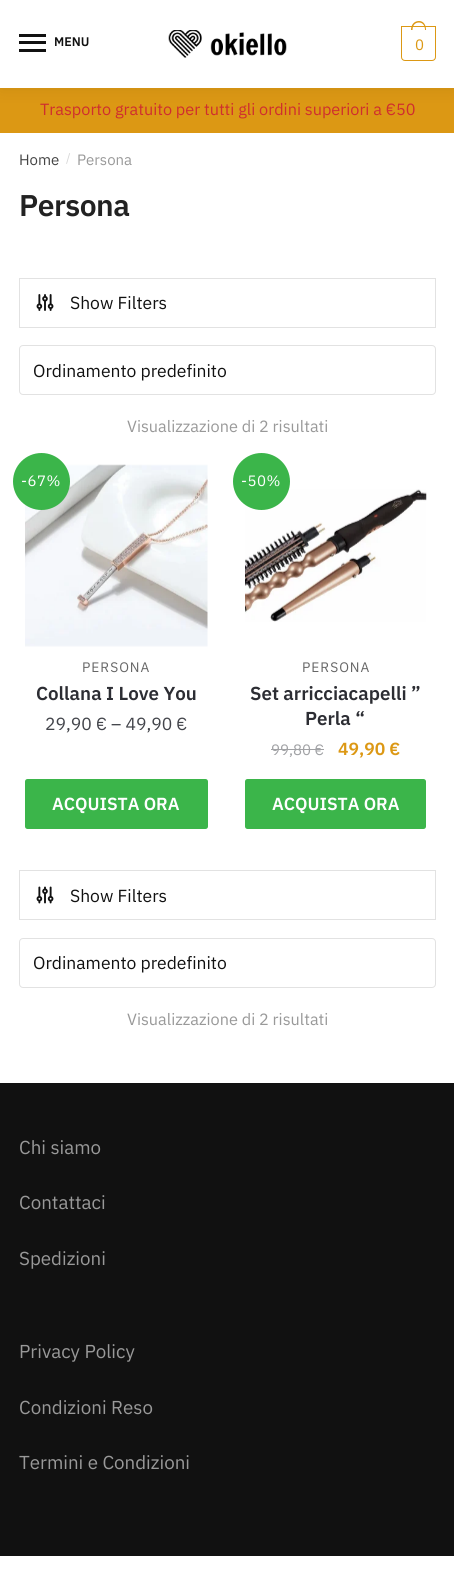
#include <cairo.h>
#include <math.h>
#include <stddef.h>


static void rgb(cairo_t *cr, int r, int g, int b)
{
	cairo_set_source_rgb(cr, r / 255.0, g / 255.0, b / 255.0);
}

static void face(cairo_t *cr, const char *family, double size, int italic, int bold)
{
	cairo_select_font_face(cr, family, italic ? CAIRO_FONT_SLANT_ITALIC : CAIRO_FONT_SLANT_NORMAL,
		bold ? CAIRO_FONT_WEIGHT_BOLD : CAIRO_FONT_WEIGHT_NORMAL);
	cairo_set_font_size(cr, size);
}

static void label(cairo_t *cr, double x, double y, const char *s)
{
	cairo_move_to(cr, x, y);
	cairo_show_text(cr, s);
}

static void tracked(cairo_t *cr, double x, double y, const char *s, double letter, double word)
{
	cairo_move_to(cr, x, y);
	while (*s) {
		char ch[5] = {0};
		int n = 0;
		do ch[n++] = *s++; while ((*s & 0xC0) == 0x80);
		cairo_show_text(cr, ch);
		cairo_rel_move_to(cr, letter + word * (*ch == ' '), 0);
	}
}

static void rect(cairo_t *cr, double x, double y, double w, double h)
{
	cairo_rectangle(cr, x, y, w, h);
	cairo_fill(cr);
}

static void rrect(cairo_t *cr, double x, double y, double w, double h, double r)
{
	cairo_new_sub_path(cr);
	cairo_arc(cr, x + w - r, y + h - r, r, 0, M_PI / 2);
	cairo_arc(cr, x + r, y + h - r, r, M_PI / 2, M_PI);
	cairo_arc(cr, x + r, y + r, r, M_PI, 1.5 * M_PI);
	cairo_arc(cr, x + w - r, y + r, r, 1.5 * M_PI, 2 * M_PI);
	cairo_close_path(cr);
}

static void soft_shadow(cairo_t *cr, double x, double y, double w, double h, double r, double blur, double alpha)
{
	cairo_push_group_with_content(cr, CAIRO_CONTENT_ALPHA);
	cairo_set_operator(cr, CAIRO_OPERATOR_SOURCE);
	for (int i = 15; i >= -15 && fmin(w, h) + blur * i / 3 > 0; i -= 2) {
		double e = blur * i / 6;
		cairo_set_source_rgba(cr, 0, 0, 0, alpha * erfc((i - 1) / 8.5) / 2);
		rrect(cr, x - e, y - e, w + 2 * e, h + 2 * e, fmax(0, fmin(r + e + blur * .6, fmin(w, h) / 2 + e)));
		cairo_fill(cr);
	}
	cairo_pattern_t *soft = cairo_pop_group(cr);
	cairo_mask(cr, soft);
	cairo_pattern_destroy(soft);
}

static void image(cairo_t *cr, const char *path, double x, double y, double w, double h)
{
	cairo_surface_t *image = cairo_image_surface_create_from_png(path);
	cairo_save(cr);
	cairo_set_source_surface(cr, image, x, y);
	cairo_rectangle(cr, x, y, w, h);
	cairo_fill(cr);
	cairo_restore(cr);
	cairo_surface_destroy(image);
}

static void draw(cairo_t *cr) {
	rgb(cr, 255, 255, 255);
	cairo_paint(cr);
	rgb(cr, 220, 152, 20);
	rect(cr, 0, 88, 454, 45);
	rgb(cr, 0, 0, 0);
	soft_shadow(cr, 0, 1, 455, 88, 0, 9.5, 0.08);
	rgb(cr, 255, 255, 255);
	rect(cr, 0, 0, 454, 88);
	rgb(cr, 17, 17, 17);
	rect(cr, 19, 34, 27, 3);
	rect(cr, 19, 41, 27, 3);
	face(cr, "IBM Plex Sans SemiBold", 12.5, 0, 0);
	label(cr, 54, 46, "MENU");
	rect(cr, 19, 49, 27, 3);
	image(cr, "image0.png", 168, 30, 119, 28);
	cairo_new_path(cr);
	cairo_move_to(cr, 401.5, 26.5);
	cairo_line_to(cr, 435.5, 26.5);
	cairo_line_to(cr, 435.5, 57);
	cairo_curve_to(cr, 435.5, 59, 434, 60.5, 432, 60.5);
	cairo_line_to(cr, 405, 60.5);
	cairo_curve_to(cr, 403, 60.5, 401.5, 59, 401.5, 57);
	cairo_close_path(cr);
	rgb(cr, 220, 152, 20);
	cairo_set_line_width(cr, 1);
	cairo_stroke(cr);
	cairo_set_fill_rule(cr, CAIRO_FILL_RULE_EVEN_ODD);
	cairo_new_path(cr);
	cairo_move_to(cr, 419, 21);
	cairo_curve_to(cr, 424, 21, 426, 25.5, 426, 30);
	cairo_line_to(cr, 411, 30);
	cairo_curve_to(cr, 411, 25.5, 413.5, 21, 419, 21);
	cairo_close_path(cr);
	cairo_move_to(cr, 419, 22.5);
	cairo_curve_to(cr, 423, 22.5, 425, 26, 425, 30);
	cairo_line_to(cr, 412.5, 30);
	cairo_curve_to(cr, 412.5, 26, 414.5, 22.5, 419, 22.5);
	cairo_close_path(cr);
	cairo_fill(cr);
	face(cr, "IBM Plex Sans", 15, 0, 0);
	tracked(cr, 415, 50, "0", -1, 0);
	face(cr, "IBM Plex Sans", 16.25, 0, 0);
	rgb(cr, 207, 46, 46);
	label(cr, 40, 115, "Trasporto gratuito per tutti gli ordini superiori a €50");
	face(cr, "IBM Plex Sans", 15, 0, 0);
	rgb(cr, 68, 68, 68);
	label(cr, 19, 165, "Home");
	face(cr, "IBM Plex Sans", 12, 0, 0);
	rgb(cr, 214, 214, 214);
	label(cr, 66, 162, "/");
	face(cr, "IBM Plex Sans", 15, 0, 0);
	rgb(cr, 153, 153, 153);
	label(cr, 77, 165, "Persona");
	face(cr, "IBM Plex Sans SemiBold", 30, 0, 0);
	rgb(cr, 34, 34, 34);
	tracked(cr, 19, 216, "Persona", -0.5, 0);
	cairo_rectangle(cr, 19.5, 278.5, 416, 49);
	rgb(cr, 226, 226, 226);
	cairo_stroke(cr);
	image(cr, "image1.png", 36, 294, 18, 17);
	face(cr, "IBM Plex Sans", 17.5, 0, 0);
	rgb(cr, 17, 17, 17);
	label(cr, 70, 309, "Show Filters");
	rrect(cr, 19.5, 345.5, 416, 49, 3.5);
	rgb(cr, 226, 226, 226);
	cairo_stroke(cr);
	rgb(cr, 17, 17, 17);
	label(cr, 33, 377, "Ordinamento predefinito");
	face(cr, "IBM Plex Sans", 16.25, 0, 0);
	rgb(cr, 153, 153, 153);
	label(cr, 127, 432, "Visualizzazione di 2 risultati");
	image(cr, "image2.png", 25, 464, 183, 183);
	rgb(cr, 59, 181, 74);
	cairo_arc(cr, 41.5, 481.5, 28.5, 0, 2 * M_PI);
	cairo_fill(cr);
	face(cr, "IBM Plex Sans", 15, 0, 0);
	rgb(cr, 255, 255, 255);
	tracked(cr, 21, 486, "-67%", 0.5, 0);
	face(cr, "IBM Plex Sans", 13.75, 0, 0);
	rgb(cr, 102, 102, 102);
	tracked(cr, 82, 672, "PERSONA", 1, 0);
	face(cr, "IBM Plex Sans SemiBold", 18.75, 0, 0);
	rgb(cr, 44, 45, 51);
	label(cr, 36, 700, "Collana I Love You");
	face(cr, "IBM Plex Sans", 17.5, 0, 0);
	rgb(cr, 67, 69, 75);
	label(cr, 45, 730, "29,90 €");
	label(cr, 111, 730, "– 49,90 €");
	rgb(cr, 59, 181, 74);
	rrect(cr, 25, 779, 183, 50, 2.5);
	cairo_fill(cr);
	face(cr, "IBM Plex Sans SemiBold", 17.5, 0, 0);
	rgb(cr, 255, 255, 255);
	label(cr, 52, 810, "ACQUISTA ORA");
	image(cr, "image3.png", 245, 489, 182, 133);
	rgb(cr, 59, 181, 74);
	cairo_arc(cr, 261.5, 481.5, 28.5, 0, 2 * M_PI);
	cairo_fill(cr);
	face(cr, "IBM Plex Sans", 15, 0, 0);
	rgb(cr, 255, 255, 255);
	tracked(cr, 241, 486, "-50%", 0.5, 0);
	face(cr, "IBM Plex Sans", 13.75, 0, 0);
	rgb(cr, 102, 102, 102);
	tracked(cr, 302, 672, "PERSONA", 1, 0);
	face(cr, "IBM Plex Sans SemiBold", 18.75, 0, 0);
	rgb(cr, 44, 45, 51);
	label(cr, 250, 700, "Set arricciacapelli ”");
	label(cr, 305, 725, "Perla “");
	face(cr, "IBM Plex Sans", 15, 0, 0);
	rgb(cr, 161, 162, 165);
	label(cr, 271, 755, "99,80 €");
	rect(cr, 271, 749, 53, 1);
	face(cr, "IBM Plex Sans SemiBold", 17.5, 0, 0);
	rgb(cr, 220, 152, 20);
	label(cr, 338, 755, "49,90 €");
	rgb(cr, 59, 181, 74);
	rrect(cr, 245, 779, 181, 50, 2.5);
	cairo_fill(cr);
	rgb(cr, 255, 255, 255);
	label(cr, 272, 810, "ACQUISTA ORA");
	cairo_rectangle(cr, 19.5, 870.5, 416, 49);
	rgb(cr, 226, 226, 226);
	cairo_stroke(cr);
	image(cr, "image4.png", 36, 886, 18, 18);
	face(cr, "IBM Plex Sans", 17.5, 0, 0);
	rgb(cr, 17, 17, 17);
	label(cr, 70, 902, "Show Filters");
	rrect(cr, 19.5, 938.5, 416, 49, 3.5);
	rgb(cr, 226, 226, 226);
	cairo_stroke(cr);
	rgb(cr, 17, 17, 17);
	label(cr, 33, 969, "Ordinamento predefinito");
	face(cr, "IBM Plex Sans", 16.25, 0, 0);
	rgb(cr, 153, 153, 153);
	label(cr, 127, 1025, "Visualizzazione di 2 risultati");
	rgb(cr, 17, 17, 17);
	rect(cr, 0, 1083, 454, 473);
	face(cr, "IBM Plex Sans", 18.75, 0, 0);
	rgb(cr, 153, 153, 153);
	label(cr, 19, 1154, "Chi siamo");
	label(cr, 19, 1209, "Contattaci");
	label(cr, 19, 1265, "Spedizioni");
	label(cr, 19, 1358, "Privacy Policy");
	label(cr, 19, 1414, "Condizioni Reso");
	label(cr, 19, 1469, "Termini e Condizioni");
}

int main(void) {
	cairo_surface_t *surface = cairo_image_surface_create(CAIRO_FORMAT_RGB24, 454, 1593);
	cairo_t *cr = cairo_create(surface);
	cairo_font_options_t *options = cairo_font_options_create();
	cairo_font_options_set_hint_metrics(options, CAIRO_HINT_METRICS_OFF);
	cairo_font_options_set_hint_style(options, CAIRO_HINT_STYLE_NONE);
	cairo_set_font_options(cr, options);
	cairo_set_miter_limit(cr, 4);
	draw(cr);
	cairo_surface_write_to_png(surface, "render.png");
	cairo_font_options_destroy(options);
	cairo_destroy(cr);
	cairo_surface_destroy(surface);
	return 0;
}
